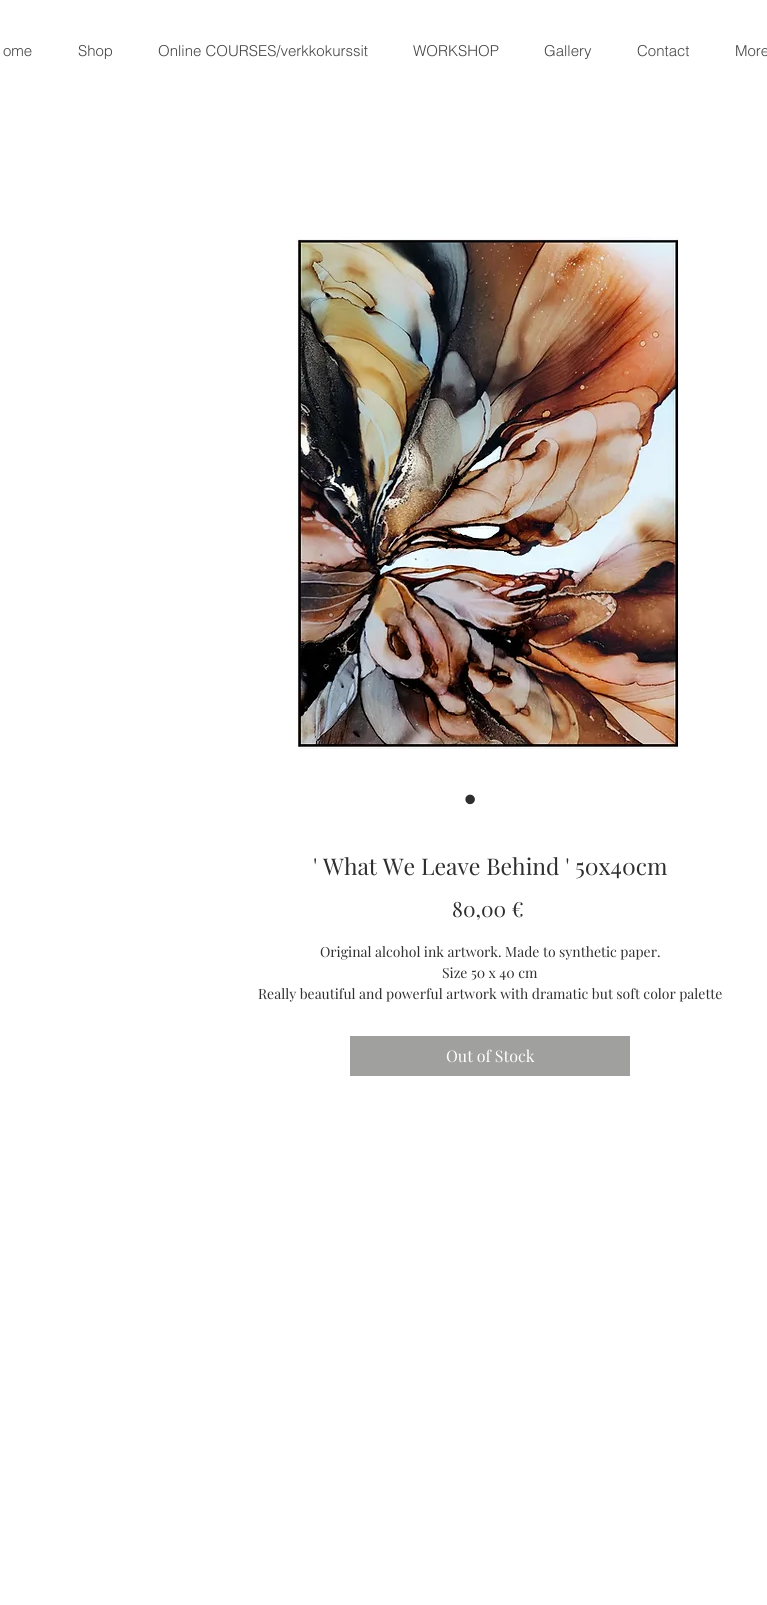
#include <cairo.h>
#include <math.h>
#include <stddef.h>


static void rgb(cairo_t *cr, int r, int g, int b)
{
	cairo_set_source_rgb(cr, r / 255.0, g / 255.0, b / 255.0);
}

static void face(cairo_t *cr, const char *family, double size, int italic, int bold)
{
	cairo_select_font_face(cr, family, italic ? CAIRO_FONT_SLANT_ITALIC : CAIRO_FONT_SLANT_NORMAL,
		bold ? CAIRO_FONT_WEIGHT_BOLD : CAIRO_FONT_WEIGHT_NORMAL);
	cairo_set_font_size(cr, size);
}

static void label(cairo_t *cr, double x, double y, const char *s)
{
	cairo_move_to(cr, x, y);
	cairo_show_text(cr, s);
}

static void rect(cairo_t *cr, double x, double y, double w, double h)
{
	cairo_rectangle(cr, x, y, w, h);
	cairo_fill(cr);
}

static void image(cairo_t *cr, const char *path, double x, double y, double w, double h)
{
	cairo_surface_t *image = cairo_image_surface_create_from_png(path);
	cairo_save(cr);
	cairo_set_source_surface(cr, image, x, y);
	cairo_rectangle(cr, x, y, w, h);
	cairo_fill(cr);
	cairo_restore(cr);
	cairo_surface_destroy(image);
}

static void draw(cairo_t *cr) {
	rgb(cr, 255, 255, 255);
	cairo_paint(cr);
	face(cr, "helvetica Light", 15, 0, 0);
	rgb(cr, 68, 68, 68);
	label(cr, 3, 56, "ome");
	label(cr, 78, 56, "Shop");
	label(cr, 158, 56, "Online COURSES/verkkokurssit");
	label(cr, 413, 56, "WORKSHOP");
	label(cr, 544, 56, "Gallery");
	label(cr, 637, 56, "Contact");
	label(cr, 735, 56, "More");
	image(cr, "image0.png", 296, 237, 384, 512);
	face(cr, "Liberation Sans", 35, 0, 0);
	rgb(cr, 47, 46, 46);
	label(cr, 464, 811, "•");
	face(cr, "Playfair Display", 23, 0, 0);
	label(cr, 313, 875, "' What We Leave Behind ' 50x40cm");
	face(cr, "Playfair Display", 21, 0, 0);
	label(cr, 452, 917, "80,00 €");
	face(cr, "Playfair Display", 14, 0, 0);
	label(cr, 320, 957, "Original alcohol ink artwork. Made to synthetic paper.");
	label(cr, 442, 978, "Size 50 x 40 cm");
	label(cr, 258, 999, "Really beautiful and powerful artwork with dramatic but soft color palette");
	rgb(cr, 160, 160, 159);
	rect(cr, 350, 1036, 280, 40);
	face(cr, "Playfair Display", 16, 0, 0);
	rgb(cr, 255, 255, 255);
	label(cr, 446, 1062, "Out of Stock");
}

int main(void) {
	cairo_surface_t *surface = cairo_image_surface_create(CAIRO_FORMAT_RGB24, 767, 1605);
	cairo_t *cr = cairo_create(surface);
	cairo_font_options_t *options = cairo_font_options_create();
	cairo_font_options_set_hint_metrics(options, CAIRO_HINT_METRICS_OFF);
	cairo_font_options_set_hint_style(options, CAIRO_HINT_STYLE_NONE);
	cairo_set_font_options(cr, options);
	cairo_set_miter_limit(cr, 4);
	draw(cr);
	cairo_surface_write_to_png(surface, "render.png");
	cairo_font_options_destroy(options);
	cairo_destroy(cr);
	cairo_surface_destroy(surface);
	return 0;
}
